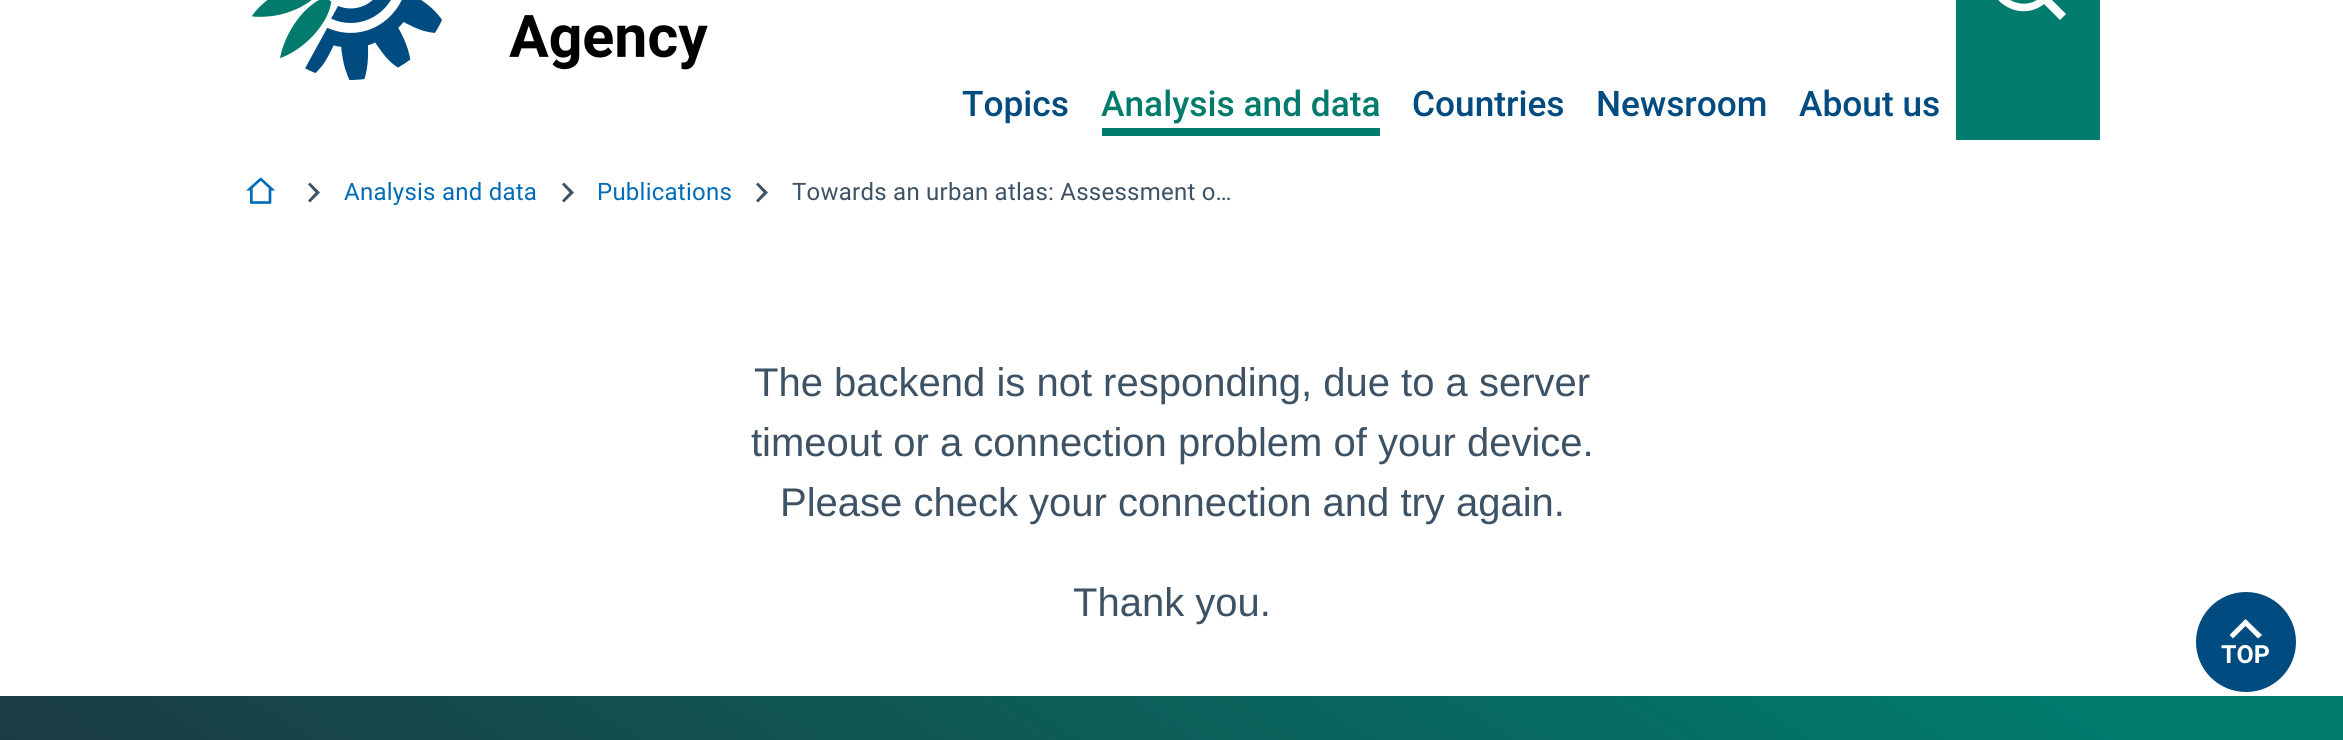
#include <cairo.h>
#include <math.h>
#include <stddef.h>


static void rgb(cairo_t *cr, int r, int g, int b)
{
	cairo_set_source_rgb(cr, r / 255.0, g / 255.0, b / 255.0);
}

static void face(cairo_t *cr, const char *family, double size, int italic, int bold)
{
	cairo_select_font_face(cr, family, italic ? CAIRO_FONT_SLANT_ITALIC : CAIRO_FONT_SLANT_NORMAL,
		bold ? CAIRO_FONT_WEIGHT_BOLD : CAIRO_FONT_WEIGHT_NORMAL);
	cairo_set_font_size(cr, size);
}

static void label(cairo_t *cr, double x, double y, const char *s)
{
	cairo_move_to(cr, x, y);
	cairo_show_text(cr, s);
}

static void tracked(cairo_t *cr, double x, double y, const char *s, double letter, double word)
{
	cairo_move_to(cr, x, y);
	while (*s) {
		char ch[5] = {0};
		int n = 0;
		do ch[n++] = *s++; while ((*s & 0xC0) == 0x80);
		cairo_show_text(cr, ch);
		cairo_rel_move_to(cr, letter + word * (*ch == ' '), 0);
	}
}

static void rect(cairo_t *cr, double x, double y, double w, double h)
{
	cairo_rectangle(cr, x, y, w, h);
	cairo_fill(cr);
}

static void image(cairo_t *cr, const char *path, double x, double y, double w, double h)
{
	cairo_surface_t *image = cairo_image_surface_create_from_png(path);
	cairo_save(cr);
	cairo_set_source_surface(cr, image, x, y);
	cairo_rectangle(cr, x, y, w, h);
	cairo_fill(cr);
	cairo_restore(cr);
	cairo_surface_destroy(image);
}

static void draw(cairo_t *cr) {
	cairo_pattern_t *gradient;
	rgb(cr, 255, 255, 255);
	cairo_paint(cr);
	image(cr, "image0.png", 251, 0, 457, 80);
	face(cr, "Roboto Medium", 35.25, 0, 0);
	rgb(cr, 0, 75, 127);
	label(cr, 962, 116, "Topics");
	rgb(cr, 0, 123, 108);
	rect(cr, 1102, 128, 278, 8);
	label(cr, 1101, 116, "Analysis and data");
	rgb(cr, 0, 75, 127);
	label(cr, 1412, 116, "Countries");
	label(cr, 1596, 116, "Newsroom");
	label(cr, 1799, 116, "About us");
	rgb(cr, 0, 123, 108);
	rect(cr, 1956, 0, 144, 140);
	rgb(cr, 255, 255, 255);
	cairo_new_path(cr);
	cairo_move_to(cr, 2050, -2);
	cairo_line_to(cr, 2066, 14);
	cairo_line_to(cr, 2060, 20);
	cairo_line_to(cr, 2044, 4);
	cairo_curve_to(cr, 2018, 25, 1978, -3, 1992, -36);
	cairo_curve_to(cr, 1996, -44, 2002, -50, 2010, -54);
	cairo_curve_to(cr, 2021, -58, 2033, -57, 2042, -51);
	cairo_curve_to(cr, 2058, -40, 2062, -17, 2050, -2);
	cairo_close_path(cr);
	cairo_move_to(cr, 2042, -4);
	cairo_curve_to(cr, 2060, -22, 2043, -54, 2018, -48);
	cairo_curve_to(cr, 2013, -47, 2008, -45, 2005, -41);
	cairo_curve_to(cr, 2001, -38, 1999, -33, 1998, -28);
	cairo_curve_to(cr, 1992, -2, 2024, 14, 2042, -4);
	cairo_close_path(cr);
	cairo_fill(cr);
	image(cr, "image1.png", 246, 177, 30, 27);
	rgb(cr, 61, 82, 101);
	cairo_new_path(cr);
	cairo_move_to(cr, 315.5, 192.5);
	cairo_line_to(cr, 308, 184.5);
	cairo_line_to(cr, 310, 182.5);
	cairo_line_to(cr, 320, 192.5);
	cairo_line_to(cr, 310, 202.5);
	cairo_line_to(cr, 308, 200.5);
	cairo_close_path(cr);
	cairo_fill(cr);
	face(cr, "Roboto", 24, 0, 0);
	rgb(cr, 0, 107, 184);
	tracked(cr, 344, 200, "Analysis and data", 0.25, 0);
	rgb(cr, 61, 82, 101);
	cairo_new_path(cr);
	cairo_move_to(cr, 569.5, 192.5);
	cairo_line_to(cr, 562, 184.5);
	cairo_line_to(cr, 564, 182.5);
	cairo_line_to(cr, 574, 192.5);
	cairo_line_to(cr, 564, 202.5);
	cairo_line_to(cr, 562, 200.5);
	cairo_close_path(cr);
	cairo_fill(cr);
	rgb(cr, 0, 107, 184);
	tracked(cr, 597, 200, "Publications", 0.25, 0);
	rgb(cr, 61, 82, 101);
	cairo_new_path(cr);
	cairo_move_to(cr, 763.5, 192.5);
	cairo_line_to(cr, 756, 184.5);
	cairo_line_to(cr, 758, 182.5);
	cairo_line_to(cr, 768, 192.5);
	cairo_line_to(cr, 758, 202.5);
	cairo_line_to(cr, 756, 200.5);
	cairo_close_path(cr);
	cairo_fill(cr);
	tracked(cr, 792, 200, "Towards an urban atlas: Assessment o…", 0.25, 0);
	face(cr, "Liberation Sans", 40, 0, 0);
	label(cr, 754, 396, "The backend is not responding, due to a server");
	label(cr, 751, 456, "timeout or a connection problem of your device.");
	label(cr, 780, 516, "Please check your connection and try again.");
	label(cr, 1073, 616, "Thank you.");
	rgb(cr, 0, 75, 127);
	cairo_new_path(cr);
	cairo_arc(cr, 2246, 642, 50, 0, 2 * M_PI);
	cairo_fill(cr);
	rgb(cr, 255, 255, 255);
	cairo_new_path(cr);
	cairo_move_to(cr, 2245.5, 626);
	cairo_line_to(cr, 2233, 638.5);
	cairo_line_to(cr, 2229.5, 635);
	cairo_line_to(cr, 2245.5, 619);
	cairo_line_to(cr, 2262, 635);
	cairo_line_to(cr, 2258, 638.5);
	cairo_close_path(cr);
	cairo_fill(cr);
	face(cr, "Roboto", 25, 0, 1);
	label(cr, 2221, 663, "TOP");
	gradient = cairo_pattern_create_linear(1762, 328, 582, 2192);
	cairo_pattern_add_color_stop_rgba(gradient, 0.07, 0, 0.482, 0.424, 1);
	cairo_pattern_add_color_stop_rgba(gradient, 0.7, 0.129, 0.176, 0.22, 1);
	cairo_pattern_add_color_stop_rgba(gradient, 0.98, 0.129, 0.176, 0.22, 1);
	cairo_set_source(cr, gradient);
	cairo_pattern_destroy(gradient);
	rect(cr, 0, 696, 2343, 44);
}

int main(void) {
	cairo_surface_t *surface = cairo_image_surface_create(CAIRO_FORMAT_RGB24, 2343, 740);
	cairo_t *cr = cairo_create(surface);
	cairo_font_options_t *options = cairo_font_options_create();
	cairo_font_options_set_hint_metrics(options, CAIRO_HINT_METRICS_OFF);
	cairo_font_options_set_hint_style(options, CAIRO_HINT_STYLE_NONE);
	cairo_set_font_options(cr, options);
	cairo_set_miter_limit(cr, 4);
	draw(cr);
	cairo_surface_write_to_png(surface, "render.png");
	cairo_font_options_destroy(options);
	cairo_destroy(cr);
	cairo_surface_destroy(surface);
	return 0;
}
